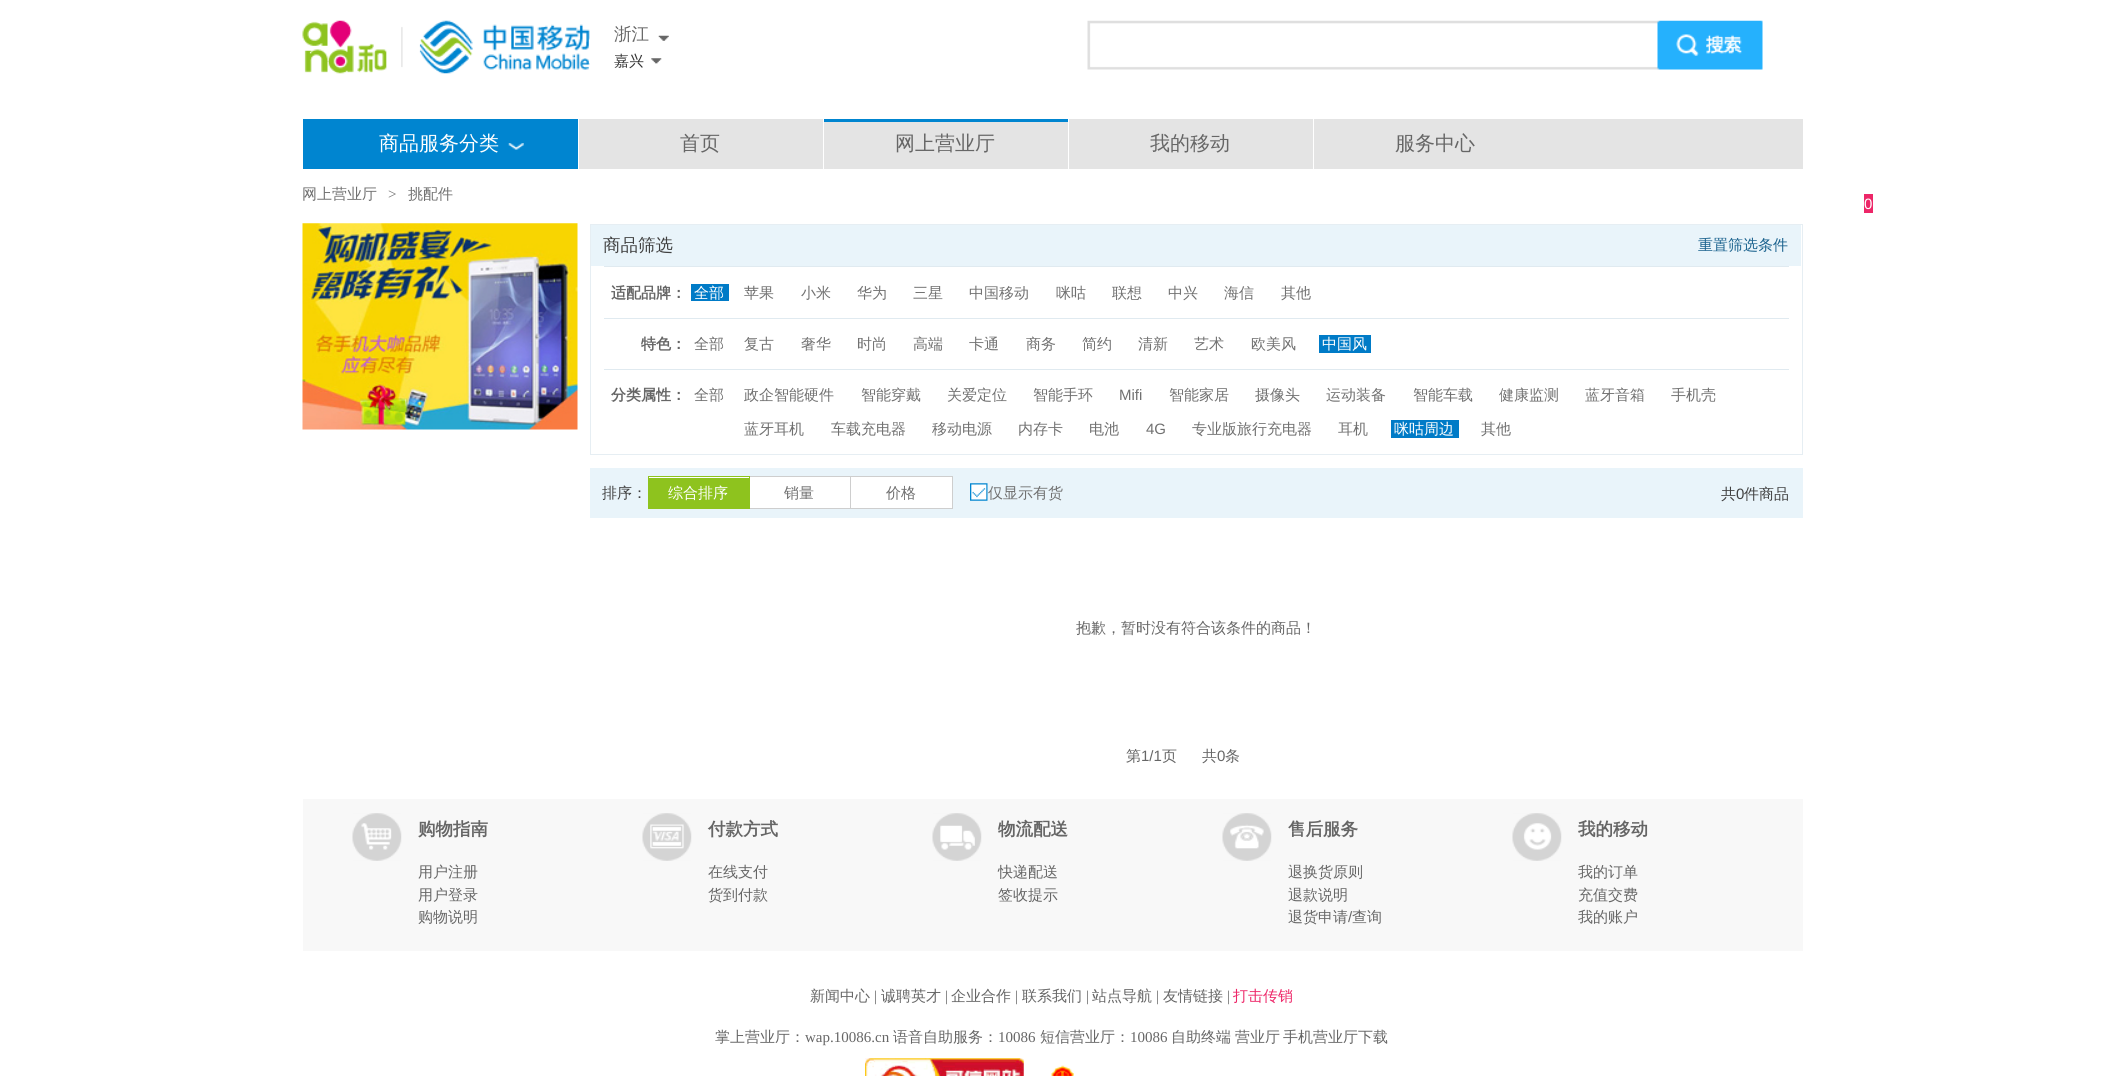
#include <cairo.h>
#include <math.h>
#include <stddef.h>


static void rgb(cairo_t *cr, int r, int g, int b)
{
	cairo_set_source_rgb(cr, r / 255.0, g / 255.0, b / 255.0);
}

static void face(cairo_t *cr, const char *family, double size, int italic, int bold)
{
	cairo_select_font_face(cr, family, italic ? CAIRO_FONT_SLANT_ITALIC : CAIRO_FONT_SLANT_NORMAL,
		bold ? CAIRO_FONT_WEIGHT_BOLD : CAIRO_FONT_WEIGHT_NORMAL);
	cairo_set_font_size(cr, size);
}

static void label(cairo_t *cr, double x, double y, const char *s)
{
	cairo_move_to(cr, x, y);
	cairo_show_text(cr, s);
}

static void rect(cairo_t *cr, double x, double y, double w, double h)
{
	cairo_rectangle(cr, x, y, w, h);
	cairo_fill(cr);
}

static void image(cairo_t *cr, const char *path, double x, double y, double w, double h)
{
	cairo_surface_t *image = cairo_image_surface_create_from_png(path);
	cairo_save(cr);
	cairo_set_source_surface(cr, image, x, y);
	cairo_rectangle(cr, x, y, w, h);
	cairo_fill(cr);
	cairo_restore(cr);
	cairo_surface_destroy(image);
}

static void draw(cairo_t *cr) {
	rgb(cr, 255, 255, 255);
	cairo_paint(cr);
	image(cr, "image0.png", 302, 20, 288, 54);
	image(cr, "image1.png", 658, 35, 11, 6);
	face(cr, "WenQuanYi Zen Hei Medium", 17.5, 0, 0);
	rgb(cr, 102, 102, 102);
	label(cr, 614, 40, "浙江");
	image(cr, "image2.png", 651, 58, 11, 6);
	face(cr, "WenQuanYi Zen Hei Medium", 15, 0, 0);
	rgb(cr, 51, 51, 51);
	label(cr, 614, 66, "嘉兴");
	image(cr, "image3.png", 1087, 20, 676, 50);
	rgb(cr, 228, 228, 228);
	rect(cr, 579, 119, 1224, 50);
	rgb(cr, 0, 133, 208);
	rect(cr, 303, 119, 275, 50);
	face(cr, "WenQuanYi Zen Hei Medium", 20, 0, 0);
	rgb(cr, 255, 255, 255);
	label(cr, 379, 150, "商品服务分类");
	image(cr, "image4.png", 508, 143, 16, 7);
	rgb(cr, 102, 102, 102);
	label(cr, 680, 150, "首页");
	rgb(cr, 255, 255, 255);
	rect(cr, 823, 119, 1, 50);
	rgb(cr, 0, 133, 208);
	rect(cr, 824, 119, 244, 3);
	rgb(cr, 102, 102, 102);
	label(cr, 895, 150, "网上营业厅");
	rgb(cr, 255, 255, 255);
	rect(cr, 1068, 119, 1, 50);
	rgb(cr, 102, 102, 102);
	label(cr, 1150, 150, "我的移动");
	rgb(cr, 255, 255, 255);
	rect(cr, 1313, 119, 1, 50);
	rgb(cr, 102, 102, 102);
	label(cr, 1395, 150, "服务中心");
	face(cr, "WenQuanYi Zen Hei Medium", 15, 0, 0);
	rgb(cr, 112, 112, 112);
	label(cr, 302, 199, "网上营业厅");
	face(cr, "Liberation Serif", 15, 0, 0);
	label(cr, 388, 199, ">");
	face(cr, "WenQuanYi Zen Hei Medium", 15, 0, 0);
	label(cr, 408, 199, "挑配件");
	rgb(cr, 237, 38, 104);
	rect(cr, 1864, 194, 9, 19);
	face(cr, "Liberation Sans", 15, 0, 0);
	rgb(cr, 255, 255, 255);
	label(cr, 1864, 209, "0");
	image(cr, "image5.png", 302, 223, 276, 207);
	cairo_rectangle(cr, 590.5, 224.5, 1212, 230);
	rgb(cr, 230, 238, 243);
	cairo_set_line_width(cr, 1);
	cairo_stroke(cr);
	rgb(cr, 233, 244, 250);
	rect(cr, 591, 225, 1210, 41);
	face(cr, "WenQuanYi Zen Hei Medium", 17.5, 0, 0);
	rgb(cr, 64, 64, 64);
	label(cr, 603, 251, "商品筛选");
	face(cr, "WenQuanYi Zen Hei Medium", 15, 0, 0);
	rgb(cr, 25, 97, 141);
	label(cr, 1698, 250, "重置筛选条件");
	rgb(cr, 224, 234, 240);
	rect(cr, 604, 266, 1185, 1);
	face(cr, "WenQuanYi Zen Hei", 15, 0, 1);
	rgb(cr, 102, 102, 102);
	label(cr, 611, 298, "适配品牌：");
	rgb(cr, 0, 123, 199);
	rect(cr, 691, 284, 38, 17);
	face(cr, "WenQuanYi Zen Hei Medium", 15, 0, 0);
	rgb(cr, 255, 255, 255);
	label(cr, 694, 298, "全部");
	rgb(cr, 112, 112, 112);
	label(cr, 744, 298, "苹果");
	label(cr, 801, 298, "小米");
	label(cr, 857, 298, "华为");
	label(cr, 913, 298, "三星");
	label(cr, 969, 298, "中国移动");
	label(cr, 1056, 298, "咪咕");
	label(cr, 1112, 298, "联想");
	label(cr, 1168, 298, "中兴");
	label(cr, 1224, 298, "海信");
	label(cr, 1281, 298, "其他");
	rgb(cr, 224, 234, 240);
	rect(cr, 604, 318, 1185, 1);
	face(cr, "WenQuanYi Zen Hei", 15, 0, 1);
	rgb(cr, 102, 102, 102);
	label(cr, 641, 349, "特色：");
	face(cr, "WenQuanYi Zen Hei Medium", 15, 0, 0);
	rgb(cr, 112, 112, 112);
	label(cr, 694, 349, "全部");
	label(cr, 744, 349, "复古");
	label(cr, 801, 349, "奢华");
	label(cr, 857, 349, "时尚");
	label(cr, 913, 349, "高端");
	label(cr, 969, 349, "卡通");
	label(cr, 1026, 349, "商务");
	label(cr, 1082, 349, "简约");
	label(cr, 1138, 349, "清新");
	label(cr, 1194, 349, "艺术");
	label(cr, 1251, 349, "欧美风");
	rgb(cr, 0, 123, 199);
	rect(cr, 1319, 335, 52, 18);
	rgb(cr, 255, 255, 255);
	label(cr, 1322, 349, "中国风");
	rgb(cr, 224, 234, 240);
	rect(cr, 604, 369, 1185, 1);
	face(cr, "WenQuanYi Zen Hei", 15, 0, 1);
	rgb(cr, 102, 102, 102);
	label(cr, 611, 400, "分类属性：");
	face(cr, "WenQuanYi Zen Hei Medium", 15, 0, 0);
	rgb(cr, 112, 112, 112);
	label(cr, 694, 400, "全部");
	label(cr, 744, 400, "政企智能硬件");
	label(cr, 861, 400, "智能穿戴");
	label(cr, 947, 400, "关爱定位");
	label(cr, 1033, 400, "智能手环");
	face(cr, "Liberation Sans", 15, 0, 0);
	label(cr, 1119, 400, "Mifi");
	face(cr, "WenQuanYi Zen Hei Medium", 15, 0, 0);
	label(cr, 1169, 400, "智能家居");
	label(cr, 1255, 400, "摄像头");
	label(cr, 1326, 400, "运动装备");
	label(cr, 1413, 400, "智能车载");
	label(cr, 1499, 400, "健康监测");
	label(cr, 1585, 400, "蓝牙音箱");
	label(cr, 1671, 400, "手机壳");
	label(cr, 744, 434, "蓝牙耳机");
	label(cr, 831, 434, "车载充电器");
	label(cr, 932, 434, "移动电源");
	label(cr, 1018, 434, "内存卡");
	label(cr, 1089, 434, "电池");
	face(cr, "Liberation Sans", 15, 0, 0);
	label(cr, 1146, 434, "4G");
	face(cr, "WenQuanYi Zen Hei Medium", 15, 0, 0);
	label(cr, 1192, 434, "专业版旅行充电器");
	label(cr, 1338, 434, "耳机");
	rgb(cr, 0, 123, 199);
	rect(cr, 1391, 420, 68, 18);
	rgb(cr, 255, 255, 255);
	label(cr, 1394, 434, "咪咕周边");
	rgb(cr, 112, 112, 112);
	label(cr, 1481, 434, "其他");
	rgb(cr, 233, 244, 250);
	rect(cr, 590, 468, 1213, 50);
	rgb(cr, 64, 64, 64);
	label(cr, 602, 498, "排序：");
	rgb(cr, 255, 255, 255);
	rect(cr, 649, 477, 100, 1);
	cairo_rectangle(cr, 749.5, 476.5, 101, 32);
	cairo_fill_preserve(cr);
	rgb(cr, 206, 206, 206);
	cairo_stroke(cr);
	cairo_rectangle(cr, 648.5, 476.5, 101, 32);
	rgb(cr, 142, 195, 30);
	cairo_stroke(cr);
	rect(cr, 649, 478, 100, 30);
	rgb(cr, 255, 255, 255);
	label(cr, 668, 498, "综合排序");
	rgb(cr, 112, 112, 112);
	label(cr, 784, 498, "销量");
	rgb(cr, 255, 255, 255);
	cairo_rectangle(cr, 850.5, 476.5, 102, 32);
	cairo_fill_preserve(cr);
	rgb(cr, 206, 206, 206);
	cairo_stroke(cr);
	rgb(cr, 112, 112, 112);
	label(cr, 886, 498, "价格");
	image(cr, "image6.png", 970, 483, 18, 18);
	label(cr, 988, 498, "仅显示有货");
	rgb(cr, 64, 64, 64);
	label(cr, 1721, 499, "共");
	face(cr, "Liberation Sans", 15, 0, 0);
	label(cr, 1736, 499, "0");
	face(cr, "WenQuanYi Zen Hei Medium", 15, 0, 0);
	label(cr, 1744, 499, "件商品");
	rgb(cr, 102, 102, 102);
	label(cr, 1076, 633, "抱歉，暂时没有符合该条件的商品！");
	label(cr, 1126, 761, "第");
	face(cr, "Liberation Sans", 15, 0, 0);
	label(cr, 1141, 761, "1/1");
	face(cr, "WenQuanYi Zen Hei Medium", 15, 0, 0);
	label(cr, 1162, 761, "页");
	label(cr, 1202, 761, "共");
	face(cr, "Liberation Sans", 15, 0, 0);
	label(cr, 1217, 761, "0");
	face(cr, "WenQuanYi Zen Hei Medium", 15, 0, 0);
	label(cr, 1225, 761, "条");
	rgb(cr, 248, 248, 248);
	rect(cr, 303, 799, 1500, 152);
	image(cr, "image7.png", 352, 813, 50, 48);
	face(cr, "WenQuanYi Zen Hei", 17.5, 0, 1);
	rgb(cr, 102, 102, 102);
	label(cr, 418, 835, "购物指南");
	face(cr, "WenQuanYi Zen Hei Medium", 15, 0, 0);
	label(cr, 418, 877, "用户注册");
	label(cr, 418, 900, "用户登录");
	label(cr, 418, 922, "购物说明");
	image(cr, "image8.png", 642, 813, 50, 48);
	face(cr, "WenQuanYi Zen Hei", 17.5, 0, 1);
	label(cr, 708, 835, "付款方式");
	face(cr, "WenQuanYi Zen Hei Medium", 15, 0, 0);
	label(cr, 708, 877, "在线支付");
	label(cr, 708, 900, "货到付款");
	image(cr, "image9.png", 932, 813, 50, 48);
	face(cr, "WenQuanYi Zen Hei", 17.5, 0, 1);
	label(cr, 998, 835, "物流配送");
	face(cr, "WenQuanYi Zen Hei Medium", 15, 0, 0);
	label(cr, 998, 877, "快递配送");
	label(cr, 998, 900, "签收提示");
	image(cr, "image10.png", 1222, 813, 50, 48);
	face(cr, "WenQuanYi Zen Hei", 17.5, 0, 1);
	label(cr, 1288, 835, "售后服务");
	face(cr, "WenQuanYi Zen Hei Medium", 15, 0, 0);
	label(cr, 1288, 877, "退换货原则");
	label(cr, 1288, 900, "退款说明");
	label(cr, 1288, 922, "退货申请");
	face(cr, "Liberation Sans", 15, 0, 0);
	label(cr, 1348, 922, "/");
	face(cr, "WenQuanYi Zen Hei Medium", 15, 0, 0);
	label(cr, 1352, 922, "查询");
	image(cr, "image11.png", 1512, 813, 50, 48);
	face(cr, "WenQuanYi Zen Hei", 17.5, 0, 1);
	label(cr, 1578, 835, "我的移动");
	face(cr, "WenQuanYi Zen Hei Medium", 15, 0, 0);
	label(cr, 1578, 877, "我的订单");
	label(cr, 1578, 900, "充值交费");
	label(cr, 1578, 922, "我的账户");
	label(cr, 810, 1001, "新闻中心");
	face(cr, "Liberation Serif", 15, 0, 0);
	label(cr, 874, 1001, "|");
	face(cr, "WenQuanYi Zen Hei Medium", 15, 0, 0);
	label(cr, 881, 1001, "诚聘英才");
	face(cr, "Liberation Serif", 15, 0, 0);
	label(cr, 945, 1001, "|");
	face(cr, "WenQuanYi Zen Hei Medium", 15, 0, 0);
	label(cr, 951, 1001, "企业合作");
	face(cr, "Liberation Serif", 15, 0, 0);
	label(cr, 1015, 1001, "|");
	face(cr, "WenQuanYi Zen Hei Medium", 15, 0, 0);
	label(cr, 1022, 1001, "联系我们");
	face(cr, "Liberation Serif", 15, 0, 0);
	label(cr, 1086, 1001, "|");
	face(cr, "WenQuanYi Zen Hei Medium", 15, 0, 0);
	label(cr, 1092, 1001, "站点导航");
	face(cr, "Liberation Serif", 15, 0, 0);
	label(cr, 1156, 1001, "|");
	face(cr, "WenQuanYi Zen Hei Medium", 15, 0, 0);
	label(cr, 1163, 1001, "友情链接");
	face(cr, "Liberation Serif", 15, 0, 0);
	label(cr, 1227, 1001, "|");
	face(cr, "WenQuanYi Zen Hei Medium", 15, 0, 0);
	rgb(cr, 237, 38, 104);
	label(cr, 1233, 1001, "打击传销");
	rgb(cr, 102, 102, 102);
	label(cr, 715, 1042, "掌上营业厅：");
	face(cr, "Liberation Serif", 15, 0, 0);
	label(cr, 805, 1042, "wap.10086.cn");
	face(cr, "WenQuanYi Zen Hei Medium", 15, 0, 0);
	label(cr, 893, 1042, "语音自助服务：");
	face(cr, "Liberation Serif", 15, 0, 0);
	label(cr, 998, 1042, "10086");
	face(cr, "WenQuanYi Zen Hei Medium", 15, 0, 0);
	label(cr, 1040, 1042, "短信营业厅：");
	face(cr, "Liberation Serif", 15, 0, 0);
	label(cr, 1130, 1042, "10086");
	face(cr, "WenQuanYi Zen Hei Medium", 15, 0, 0);
	label(cr, 1171, 1042, "自助终端");
	label(cr, 1235, 1042, "营业厅");
	label(cr, 1283, 1042, "手机营业厅下载");
	image(cr, "image12.png", 865, 1058, 159, 18);
	image(cr, "image13.png", 1051, 1065, 23, 11);
}

int main(void) {
	cairo_surface_t *surface = cairo_image_surface_create(CAIRO_FORMAT_RGB24, 2103, 1076);
	cairo_t *cr = cairo_create(surface);
	cairo_font_options_t *options = cairo_font_options_create();
	cairo_font_options_set_hint_metrics(options, CAIRO_HINT_METRICS_OFF);
	cairo_font_options_set_hint_style(options, CAIRO_HINT_STYLE_NONE);
	cairo_set_font_options(cr, options);
	cairo_set_miter_limit(cr, 4);
	draw(cr);
	cairo_surface_write_to_png(surface, "render.png");
	cairo_font_options_destroy(options);
	cairo_destroy(cr);
	cairo_surface_destroy(surface);
	return 0;
}
